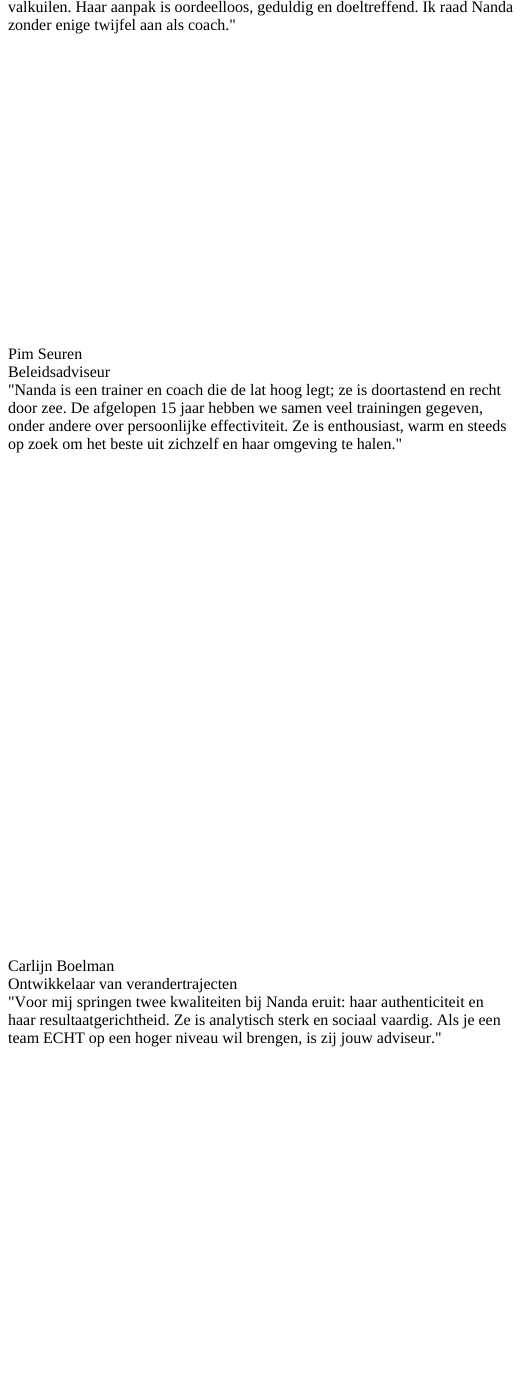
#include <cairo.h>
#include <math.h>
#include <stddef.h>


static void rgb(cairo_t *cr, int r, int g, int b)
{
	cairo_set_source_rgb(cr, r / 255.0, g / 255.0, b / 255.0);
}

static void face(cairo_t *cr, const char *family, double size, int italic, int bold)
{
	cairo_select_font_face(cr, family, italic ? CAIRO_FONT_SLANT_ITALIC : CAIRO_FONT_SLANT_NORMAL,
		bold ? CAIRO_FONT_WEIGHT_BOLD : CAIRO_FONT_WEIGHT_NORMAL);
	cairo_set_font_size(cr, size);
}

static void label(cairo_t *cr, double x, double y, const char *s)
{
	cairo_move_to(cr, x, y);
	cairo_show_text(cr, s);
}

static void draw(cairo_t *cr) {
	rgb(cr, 255, 255, 255);
	cairo_paint(cr);
	face(cr, "Liberation Serif", 16, 0, 0);
	rgb(cr, 0, 0, 0);
	label(cr, 8, 12, "valkuilen. Haar aanpak is oordeelloos, geduldig en doeltreffend. Ik raad Nanda");
	label(cr, 8, 30, "zonder enige twijfel aan als coach.\"");
	label(cr, 8, 359, "Pim Seuren");
	label(cr, 8, 377, "Beleidsadviseur");
	label(cr, 8, 395, "\"Nanda is een trainer en coach die de lat hoog legt; ze is doortastend en recht");
	label(cr, 8, 413, "door zee. De afgelopen 15 jaar hebben we samen veel trainingen gegeven,");
	label(cr, 8, 431, "onder andere over persoonlijke effectiviteit. Ze is enthousiast, warm en steeds");
	label(cr, 8, 449, "op zoek om het beste uit zichzelf en haar omgeving te halen.\"");
	label(cr, 8, 971, "Carlijn Boelman");
	label(cr, 8, 989, "Ontwikkelaar van verandertrajecten");
	label(cr, 8, 1007, "\"Voor mij springen twee kwaliteiten bij Nanda eruit: haar authenticiteit en");
	label(cr, 8, 1025, "haar resultaatgerichtheid. Ze is analytisch sterk en sociaal vaardig. Als je een");
	label(cr, 8, 1043, "team ECHT op een hoger niveau wil brengen, is zij jouw adviseur.\"");
}

int main(void) {
	cairo_surface_t *surface = cairo_image_surface_create(CAIRO_FORMAT_RGB24, 523, 1389);
	cairo_t *cr = cairo_create(surface);
	cairo_font_options_t *options = cairo_font_options_create();
	cairo_font_options_set_hint_metrics(options, CAIRO_HINT_METRICS_OFF);
	cairo_font_options_set_hint_style(options, CAIRO_HINT_STYLE_NONE);
	cairo_set_font_options(cr, options);
	cairo_set_miter_limit(cr, 4);
	draw(cr);
	cairo_surface_write_to_png(surface, "render.png");
	cairo_font_options_destroy(options);
	cairo_destroy(cr);
	cairo_surface_destroy(surface);
	return 0;
}
